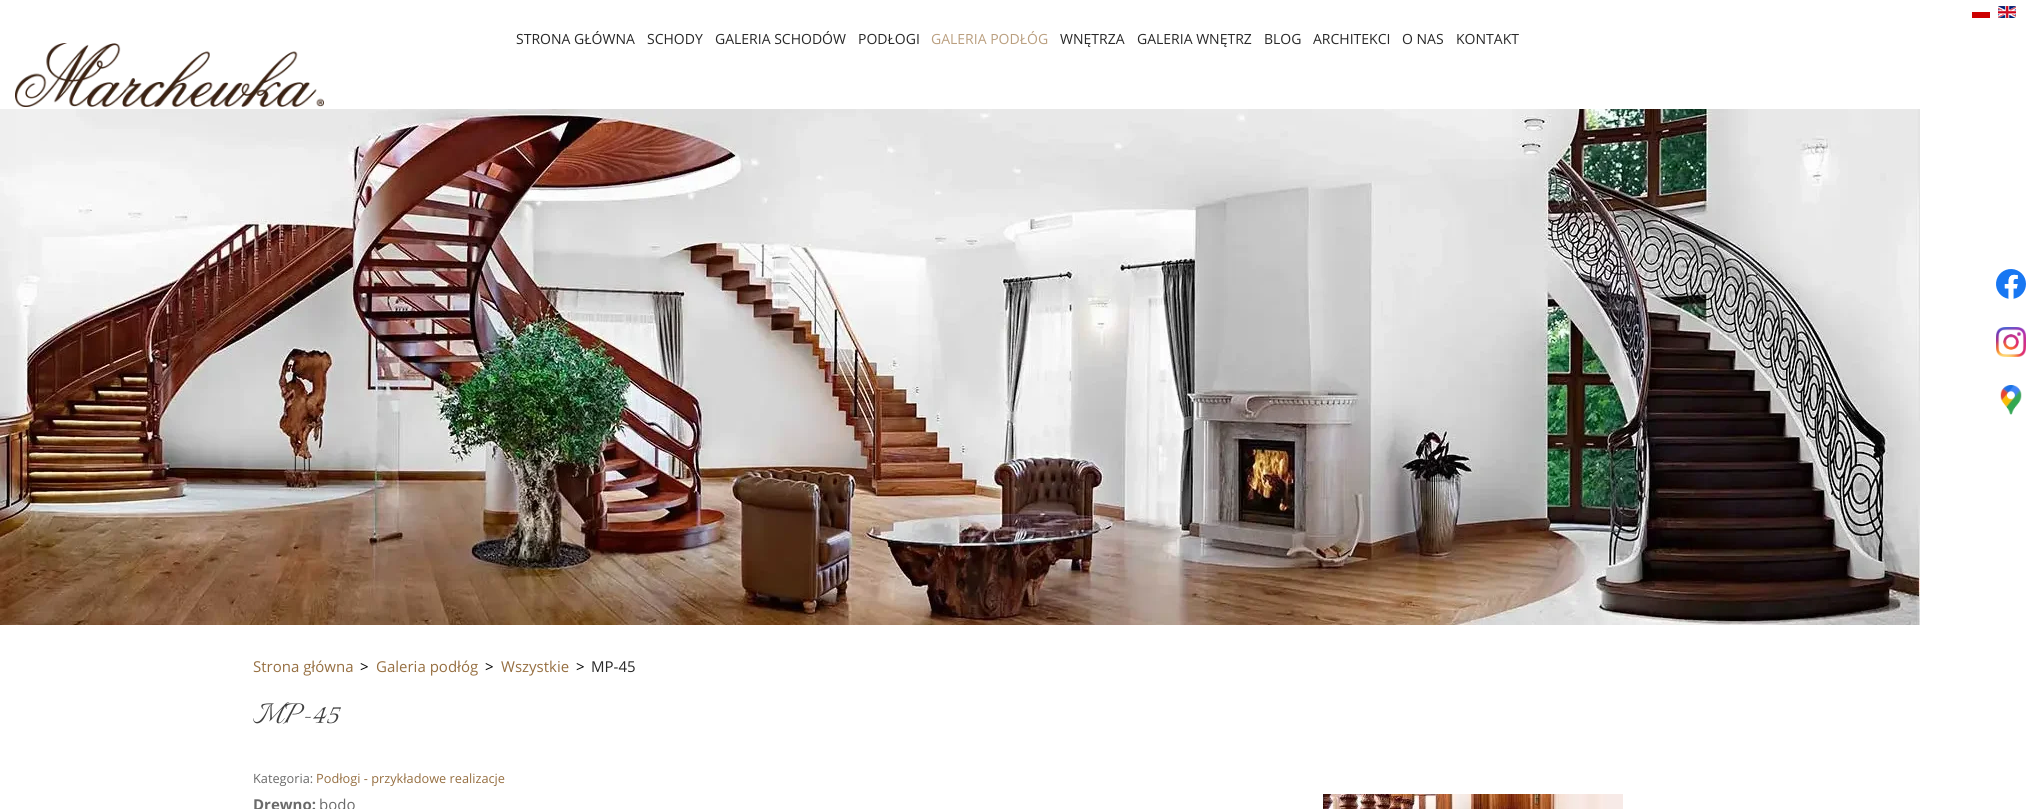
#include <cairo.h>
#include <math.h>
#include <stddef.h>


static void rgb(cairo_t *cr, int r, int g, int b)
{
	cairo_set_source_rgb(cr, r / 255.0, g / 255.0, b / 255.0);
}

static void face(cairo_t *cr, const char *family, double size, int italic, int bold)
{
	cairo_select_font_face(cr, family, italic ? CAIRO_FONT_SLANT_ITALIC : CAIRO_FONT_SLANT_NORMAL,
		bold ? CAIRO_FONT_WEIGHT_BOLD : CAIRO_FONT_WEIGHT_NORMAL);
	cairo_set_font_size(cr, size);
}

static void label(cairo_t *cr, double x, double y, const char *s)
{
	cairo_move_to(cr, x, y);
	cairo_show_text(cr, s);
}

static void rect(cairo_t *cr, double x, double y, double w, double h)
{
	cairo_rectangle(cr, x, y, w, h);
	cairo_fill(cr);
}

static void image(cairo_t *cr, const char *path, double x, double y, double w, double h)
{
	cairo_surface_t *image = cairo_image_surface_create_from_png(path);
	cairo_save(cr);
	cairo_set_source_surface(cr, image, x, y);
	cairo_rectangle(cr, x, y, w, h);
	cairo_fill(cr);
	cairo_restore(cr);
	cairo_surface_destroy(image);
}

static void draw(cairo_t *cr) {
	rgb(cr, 255, 255, 255);
	cairo_paint(cr);
	rgb(cr, 204, 0, 0);
	rect(cr, 1972, 12, 18, 6);
	image(cr, "image0.png", 1998, 6, 18, 12);
	face(cr, "Open Sans", 14, 0, 0);
	rgb(cr, 40, 40, 40);
	label(cr, 516, 44, "STRONA GŁÓWNA");
	label(cr, 647, 44, "SCHODY");
	label(cr, 715, 44, "GALERIA SCHODÓW");
	label(cr, 858, 44, "PODŁOGI");
	rgb(cr, 186, 159, 127);
	label(cr, 931, 44, "GALERIA PODŁÓG");
	rgb(cr, 40, 40, 40);
	label(cr, 1060, 44, "WNĘTRZA");
	label(cr, 1137, 44, "GALERIA WNĘTRZ");
	label(cr, 1264, 44, "BLOG");
	label(cr, 1313, 44, "ARCHITEKCI");
	label(cr, 1402, 44, "O NAS");
	label(cr, 1456, 44, "KONTAKT");
	image(cr, "image1.png", 15, 43, 309, 64);
	image(cr, "image2.png", 1996, 269, 30, 30);
	image(cr, "image3.png", 1996, 327, 30, 30);
	image(cr, "image4.png", 2000, 385, 22, 30);
	image(cr, "image5.png", 0, 109, 1920, 516);
	face(cr, "Open Sans", 15, 0, 0);
	rgb(cr, 150, 111, 65);
	label(cr, 253, 672, "Strona główna");
	rgb(cr, 0, 0, 0);
	label(cr, 360, 672, ">");
	rgb(cr, 150, 111, 65);
	label(cr, 376, 672, "Galeria podłóg");
	rgb(cr, 0, 0, 0);
	label(cr, 485, 672, ">");
	rgb(cr, 150, 111, 65);
	label(cr, 501, 672, "Wszystkie");
	rgb(cr, 0, 0, 0);
	label(cr, 576, 672, ">");
	rgb(cr, 40, 40, 40);
	label(cr, 591, 672, "MP-45");
	face(cr, "Italianno", 36, 0, 0);
	rgb(cr, 63, 63, 63);
	label(cr, 253, 723, "MP-45");
	face(cr, "Open Sans", 12.75, 0, 0);
	rgb(cr, 106, 106, 106);
	label(cr, 253, 783, "Kategoria:");
	rgb(cr, 150, 111, 65);
	label(cr, 316, 783, "Podłogi - przykładowe realizacje");
	face(cr, "Open Sans", 15, 0, 1);
	rgb(cr, 106, 106, 106);
	label(cr, 253, 810, "Drewno:");
	face(cr, "Open Sans", 15, 0, 0);
	label(cr, 319, 810, "bodo");
	image(cr, "image6.png", 1323, 794, 300, 15);
}

int main(void) {
	cairo_surface_t *surface = cairo_image_surface_create(CAIRO_FORMAT_RGB24, 2035, 809);
	cairo_t *cr = cairo_create(surface);
	cairo_font_options_t *options = cairo_font_options_create();
	cairo_font_options_set_hint_metrics(options, CAIRO_HINT_METRICS_OFF);
	cairo_font_options_set_hint_style(options, CAIRO_HINT_STYLE_NONE);
	cairo_set_font_options(cr, options);
	cairo_set_miter_limit(cr, 4);
	draw(cr);
	cairo_surface_write_to_png(surface, "render.png");
	cairo_font_options_destroy(options);
	cairo_destroy(cr);
	cairo_surface_destroy(surface);
	return 0;
}
